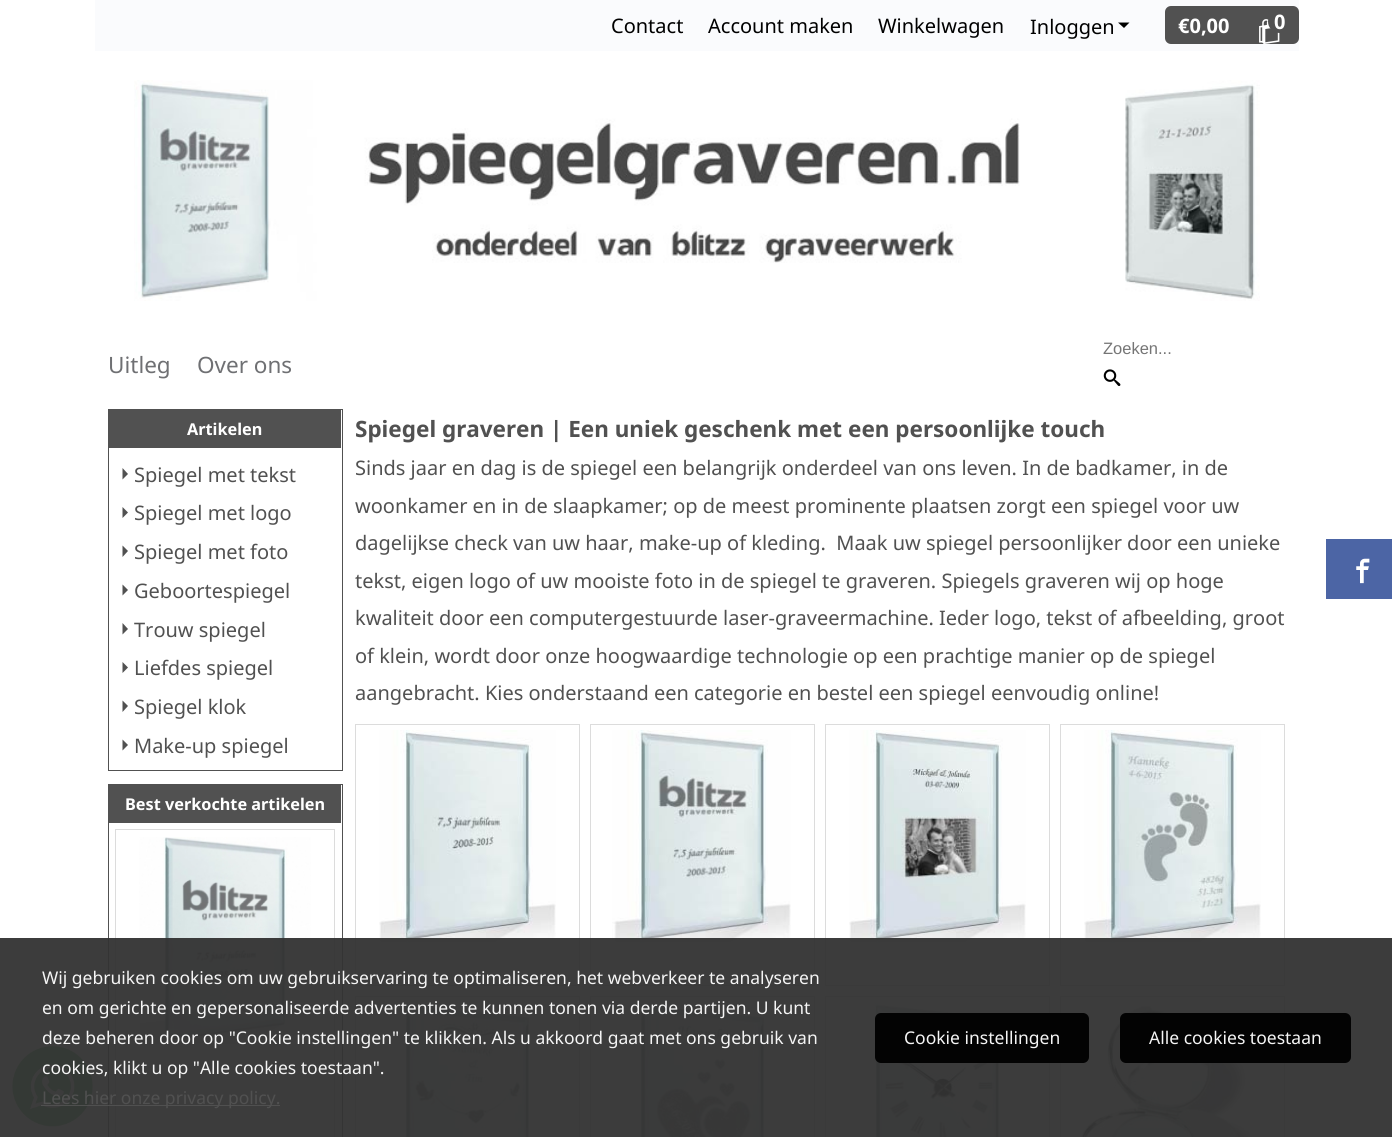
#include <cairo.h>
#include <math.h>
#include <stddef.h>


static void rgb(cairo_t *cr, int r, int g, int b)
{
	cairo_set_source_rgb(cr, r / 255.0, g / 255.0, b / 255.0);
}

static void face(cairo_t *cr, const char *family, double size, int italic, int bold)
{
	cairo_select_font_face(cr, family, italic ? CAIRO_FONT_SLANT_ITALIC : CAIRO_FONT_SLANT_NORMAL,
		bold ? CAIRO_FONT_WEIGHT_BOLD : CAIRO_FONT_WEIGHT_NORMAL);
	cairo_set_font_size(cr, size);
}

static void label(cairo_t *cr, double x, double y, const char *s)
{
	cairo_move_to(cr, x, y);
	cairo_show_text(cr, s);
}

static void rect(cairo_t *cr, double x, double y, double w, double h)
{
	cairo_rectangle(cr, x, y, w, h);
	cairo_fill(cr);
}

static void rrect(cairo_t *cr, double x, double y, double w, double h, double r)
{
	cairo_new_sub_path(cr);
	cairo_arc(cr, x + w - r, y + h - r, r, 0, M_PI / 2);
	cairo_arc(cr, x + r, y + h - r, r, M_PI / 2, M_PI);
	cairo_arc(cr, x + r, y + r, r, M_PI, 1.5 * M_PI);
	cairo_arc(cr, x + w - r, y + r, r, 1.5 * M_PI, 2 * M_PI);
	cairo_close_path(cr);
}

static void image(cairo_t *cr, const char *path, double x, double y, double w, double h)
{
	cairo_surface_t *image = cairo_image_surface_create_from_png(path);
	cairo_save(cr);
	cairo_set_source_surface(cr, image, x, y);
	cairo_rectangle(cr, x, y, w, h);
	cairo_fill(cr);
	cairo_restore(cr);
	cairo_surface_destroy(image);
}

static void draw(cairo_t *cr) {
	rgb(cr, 255, 255, 255);
	cairo_paint(cr);
	rgb(cr, 250, 251, 253);
	rect(cr, 95, 0, 1204, 51);
	face(cr, "Noto Sans", 20, 0, 0);
	rgb(cr, 0, 0, 0);
	label(cr, 611, 33, "Contact");
	label(cr, 708, 33, "Account maken");
	label(cr, 878, 33, "Winkelwagen");
	label(cr, 1030, 34, "Inloggen");
	cairo_new_path(cr);
	cairo_move_to(cr, 1118, 22.5);
	cairo_line_to(cr, 1124, 28);
	cairo_line_to(cr, 1129.5, 22.5);
	cairo_close_path(cr);
	cairo_fill(cr);
	rgb(cr, 81, 81, 81);
	rrect(cr, 1165, 6, 134, 38, 6);
	cairo_fill(cr);
	face(cr, "Noto Sans", 20, 0, 1);
	rgb(cr, 255, 255, 255);
	label(cr, 1178, 33, "€0,00");
	image(cr, "image0.png", 1259, 19, 21, 25);
	rgb(cr, 81, 81, 81);
	rrect(cr, 1268, 10, 25, 23, 11.5);
	cairo_fill(cr);
	rgb(cr, 255, 255, 255);
	label(cr, 1274, 29, "0");
	image(cr, "image1.png", 134, 80, 1126, 221);
	face(cr, "Liberation Sans", 16.5, 0, 0);
	rgb(cr, 117, 117, 117);
	label(cr, 1103, 354, "Zoeken...");
	image(cr, "image2.png", 1103, 369, 18, 17);
	face(cr, "Noto Sans", 22.5, 0, 0);
	rgb(cr, 111, 112, 115);
	label(cr, 108, 373, "Uitleg");
	label(cr, 197, 373, "Over ons");
	cairo_rectangle(cr, 108.5, 409.5, 234, 361);
	rgb(cr, 81, 81, 81);
	cairo_set_line_width(cr, 1);
	cairo_stroke(cr);
	rect(cr, 109, 410, 232, 38);
	face(cr, "Noto Sans", 16.25, 0, 1);
	rgb(cr, 255, 255, 255);
	label(cr, 187, 435, "Artikelen");
	face(cr, "Noto Sans", 20, 0, 0);
	rgb(cr, 81, 81, 81);
	label(cr, 134, 482, "Spiegel met tekst");
	cairo_new_path(cr);
	cairo_move_to(cr, 122.5, 479.5);
	cairo_line_to(cr, 128, 474);
	cairo_line_to(cr, 122.5, 468);
	cairo_close_path(cr);
	cairo_move_to(cr, 122.5, 518);
	cairo_line_to(cr, 128, 512.5);
	cairo_line_to(cr, 122.5, 507);
	cairo_close_path(cr);
	cairo_fill(cr);
	label(cr, 134, 520, "Spiegel met logo");
	label(cr, 134, 559, "Spiegel met foto");
	cairo_new_path(cr);
	cairo_move_to(cr, 122.5, 557);
	cairo_line_to(cr, 128, 551);
	cairo_line_to(cr, 122.5, 545.5);
	cairo_close_path(cr);
	cairo_move_to(cr, 122.5, 595.5);
	cairo_line_to(cr, 128, 590);
	cairo_line_to(cr, 122.5, 584.5);
	cairo_close_path(cr);
	cairo_fill(cr);
	label(cr, 134, 598, "Geboortespiegel");
	label(cr, 134, 637, "Trouw spiegel");
	cairo_new_path(cr);
	cairo_move_to(cr, 122.5, 634.5);
	cairo_line_to(cr, 128, 629);
	cairo_line_to(cr, 122.5, 623);
	cairo_close_path(cr);
	cairo_move_to(cr, 122.5, 673);
	cairo_line_to(cr, 128, 667.5);
	cairo_line_to(cr, 122.5, 662);
	cairo_close_path(cr);
	cairo_fill(cr);
	label(cr, 134, 675, "Liefdes spiegel");
	label(cr, 134, 714, "Spiegel klok");
	cairo_new_path(cr);
	cairo_move_to(cr, 122.5, 712);
	cairo_line_to(cr, 128, 706);
	cairo_line_to(cr, 122.5, 700.5);
	cairo_close_path(cr);
	cairo_move_to(cr, 122.5, 750.5);
	cairo_line_to(cr, 128, 745);
	cairo_line_to(cr, 122.5, 739.5);
	cairo_close_path(cr);
	cairo_fill(cr);
	label(cr, 134, 753, "Make-up spiegel");
	cairo_rectangle(cr, 108.5, 784.5, 234, 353);
	cairo_stroke(cr);
	rect(cr, 109, 785, 232, 38);
	face(cr, "Noto Sans", 16.25, 0, 1);
	rgb(cr, 255, 255, 255);
	label(cr, 125, 810, "Best verkochte artikelen");
	cairo_rectangle(cr, 115.5, 829.5, 219, 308);
	rgb(cr, 220, 220, 220);
	cairo_stroke(cr);
	image(cr, "image3.png", 139, 837, 172, 207);
	face(cr, "Noto Sans", 22.5, 0, 1);
	rgb(cr, 81, 81, 81);
	label(cr, 355, 437, "Spiegel graveren | Een uniek geschenk met een persoonlijke touch");
	face(cr, "Noto Sans", 20, 0, 0);
	label(cr, 355, 475, "Sinds jaar en dag is de spiegel een belangrijk onderdeel van ons leven. In de badkamer, in de");
	label(cr, 355, 513, "woonkamer en in de slaapkamer; op de meest prominente plaatsen zorgt een spiegel voor uw");
	label(cr, 355, 550, "dagelijkse check van uw haar, make-up of kleding.  Maak uw spiegel persoonlijker door een unieke");
	label(cr, 355, 588, "tekst, eigen logo of uw mooiste foto in de spiegel te graveren. Spiegels graveren wij op hoge");
	label(cr, 355, 625, "kwaliteit door een computergestuurde laser-graveermachine. Ieder logo, tekst of afbeelding, groot");
	label(cr, 355, 663, "of klein, wordt door onze hoogwaardige technologie op een prachtige manier op de spiegel");
	label(cr, 355, 700, "aangebracht. Kies onderstaand een categorie en bestel een spiegel eenvoudig online!");
	cairo_rectangle(cr, 355.5, 724.5, 224, 261);
	rgb(cr, 220, 220, 220);
	cairo_stroke(cr);
	image(cr, "image4.png", 379, 730, 177, 213);
	cairo_rectangle(cr, 590.5, 724.5, 224, 261);
	cairo_stroke(cr);
	image(cr, "image5.png", 612, 730, 179, 213);
	cairo_rectangle(cr, 825.5, 724.5, 224, 261);
	cairo_stroke(cr);
	image(cr, "image6.png", 849, 730, 177, 213);
	cairo_rectangle(cr, 1060.5, 724.5, 224, 261);
	cairo_stroke(cr);
	image(cr, "image7.png", 1084, 730, 177, 213);
	cairo_rectangle(cr, 355.5, 996.5, 224, 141);
	cairo_stroke(cr);
	image(cr, "image8.png", 393, 1002, 140, 135);
	cairo_rectangle(cr, 590.5, 996.5, 224, 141);
	cairo_stroke(cr);
	image(cr, "image9.png", 628, 1002, 140, 135);
	cairo_rectangle(cr, 825.5, 996.5, 224, 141);
	cairo_stroke(cr);
	image(cr, "image10.png", 872, 1002, 131, 135);
	cairo_rectangle(cr, 1060.5, 996.5, 224, 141);
	cairo_stroke(cr);
	image(cr, "image11.png", 1075, 1002, 178, 135);
	rgb(cr, 76, 101, 165);
	rect(cr, 1326, 539, 66, 60);
	image(cr, "image12.png", 1356, 558, 14, 26);
	image(cr, "image13.png", 12, 1046, 81, 81);
	cairo_set_source_rgba(cr, 0.2, 0.2, 0.2, 0.95);
	rect(cr, 0, 938, 1392, 199);
	face(cr, "Noto Sans", 17.5, 0, 0);
	rgb(cr, 245, 245, 245);
	label(cr, 42, 984, "Wij gebruiken cookies om uw gebruikservaring te optimaliseren, het webverkeer te analyseren");
	label(cr, 42, 1014, "en om gerichte en gepersonaliseerde advertenties te kunnen tonen via derde partijen. U kunt");
	label(cr, 42, 1044, "deze beheren door op \"Cookie instellingen\" te klikken. Als u akkoord gaat met ons gebruik van");
	label(cr, 42, 1074, "cookies, klikt u op \"Alle cookies toestaan\".");
	cairo_set_source_rgba(cr, 0.318, 0.318, 0.318, 0.95);
	rect(cr, 41, 1105, 239, 1);
	rgb(cr, 81, 81, 81);
	label(cr, 42, 1104, "Lees hier onze privacy policy.");
	cairo_set_source_rgba(cr, 0, 0, 0, 0.95);
	rrect(cr, 875, 1013, 214, 50, 6);
	cairo_fill(cr);
	rgb(cr, 245, 245, 245);
	label(cr, 904, 1044, "Cookie instellingen");
	cairo_set_source_rgba(cr, 0, 0, 0, 0.95);
	rrect(cr, 1120, 1013, 231, 50, 6);
	cairo_fill(cr);
	rgb(cr, 245, 245, 245);
	label(cr, 1149, 1044, "Alle cookies toestaan");
}

int main(void) {
	cairo_surface_t *surface = cairo_image_surface_create(CAIRO_FORMAT_RGB24, 1392, 1137);
	cairo_t *cr = cairo_create(surface);
	cairo_font_options_t *options = cairo_font_options_create();
	cairo_font_options_set_hint_metrics(options, CAIRO_HINT_METRICS_OFF);
	cairo_font_options_set_hint_style(options, CAIRO_HINT_STYLE_NONE);
	cairo_set_font_options(cr, options);
	cairo_set_miter_limit(cr, 4);
	draw(cr);
	cairo_surface_write_to_png(surface, "render.png");
	cairo_font_options_destroy(options);
	cairo_destroy(cr);
	cairo_surface_destroy(surface);
	return 0;
}
